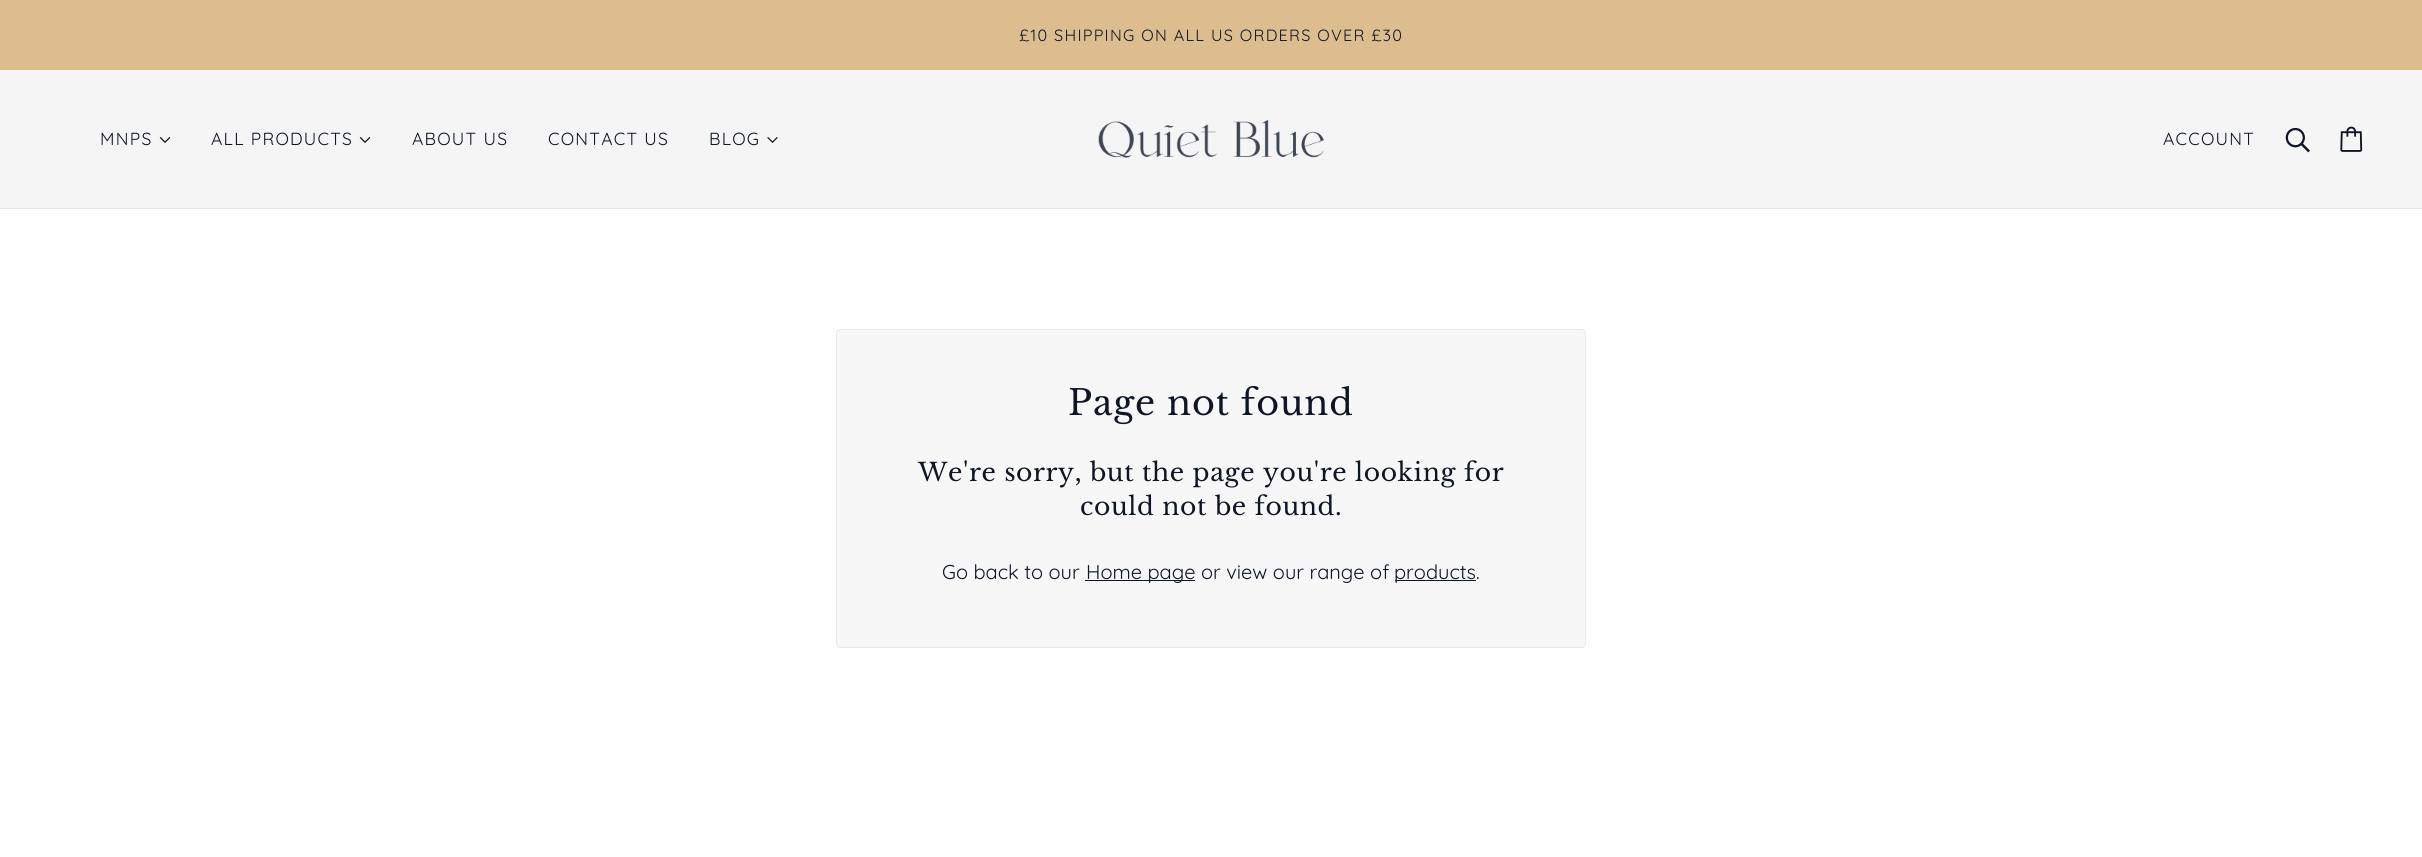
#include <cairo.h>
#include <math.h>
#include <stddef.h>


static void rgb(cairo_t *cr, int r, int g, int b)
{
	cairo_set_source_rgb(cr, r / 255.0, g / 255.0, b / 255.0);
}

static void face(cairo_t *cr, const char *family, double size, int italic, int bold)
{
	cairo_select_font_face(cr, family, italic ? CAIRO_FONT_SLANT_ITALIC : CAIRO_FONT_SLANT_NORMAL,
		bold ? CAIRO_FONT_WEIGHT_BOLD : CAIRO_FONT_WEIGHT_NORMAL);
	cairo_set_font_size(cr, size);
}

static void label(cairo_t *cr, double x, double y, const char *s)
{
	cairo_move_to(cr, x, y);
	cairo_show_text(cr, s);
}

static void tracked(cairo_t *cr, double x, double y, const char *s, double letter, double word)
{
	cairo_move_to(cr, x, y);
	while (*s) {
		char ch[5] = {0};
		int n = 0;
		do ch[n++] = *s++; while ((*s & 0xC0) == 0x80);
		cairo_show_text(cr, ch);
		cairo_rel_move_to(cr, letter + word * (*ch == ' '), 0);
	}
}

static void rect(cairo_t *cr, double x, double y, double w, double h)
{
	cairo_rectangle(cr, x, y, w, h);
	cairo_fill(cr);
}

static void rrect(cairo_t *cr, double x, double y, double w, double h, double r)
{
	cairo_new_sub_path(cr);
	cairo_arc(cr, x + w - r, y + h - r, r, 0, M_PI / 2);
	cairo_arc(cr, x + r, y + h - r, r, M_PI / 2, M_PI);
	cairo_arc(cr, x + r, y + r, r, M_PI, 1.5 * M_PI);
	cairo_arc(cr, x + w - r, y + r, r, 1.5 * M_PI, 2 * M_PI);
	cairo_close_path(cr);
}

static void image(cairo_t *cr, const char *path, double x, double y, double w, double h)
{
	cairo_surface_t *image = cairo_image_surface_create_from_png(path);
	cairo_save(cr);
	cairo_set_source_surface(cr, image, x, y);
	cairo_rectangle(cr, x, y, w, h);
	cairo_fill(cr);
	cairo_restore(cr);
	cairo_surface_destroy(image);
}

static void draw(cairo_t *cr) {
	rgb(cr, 255, 255, 255);
	cairo_paint(cr);
	rgb(cr, 220, 190, 142);
	rect(cr, 0, 0, 2422, 70);
	face(cr, "Quicksand Light", 16.25, 0, 0);
	rgb(cr, 14, 22, 37);
	tracked(cr, 1019, 41, "£10 SHIPPING ON ALL US ORDERS OVER £30", 1.25, 0);
	rgb(cr, 245, 245, 245);
	rect(cr, 0, 70, 2422, 138);
	rgb(cr, 229, 229, 230);
	rect(cr, 0, 208, 2422, 1);
	face(cr, "Quicksand Light", 17.5, 0, 0);
	rgb(cr, 14, 22, 37);
	tracked(cr, 100, 145, "MNPS", 1.25, 0);
	image(cr, "image0.png", 159, 137, 12, 6);
	tracked(cr, 211, 145, "ALL PRODUCTS", 1.25, 0);
	image(cr, "image0.png", 359, 137, 12, 6);
	tracked(cr, 412, 145, "ABOUT US", 1.25, 0);
	tracked(cr, 548, 145, "CONTACT US", 1.25, 0);
	tracked(cr, 709, 145, "BLOG", 1.25, 0);
	image(cr, "image1.png", 767, 137, 11, 6);
	image(cr, "image2.png", 1098, 120, 226, 38);
	tracked(cr, 2163, 145, "ACCOUNT", 1.25, 0);
	image(cr, "image3.png", 2285, 128, 25, 25);
	image(cr, "image4.png", 2340, 126, 23, 26);
	rgb(cr, 247, 247, 247);
	rrect(cr, 836.5, 329.5, 749, 318, 3.5);
	cairo_fill_preserve(cr);
	rgb(cr, 234, 234, 234);
	cairo_set_line_width(cr, 1);
	cairo_stroke(cr);
	face(cr, "Libre Baskerville", 35, 0, 0);
	rgb(cr, 14, 22, 37);
	tracked(cr, 1068, 415, "Page not found", 0.9, 0);
	face(cr, "Libre Baskerville", 25, 0, 0);
	tracked(cr, 918, 481, "We're sorry, but the page you're looking for", 0.6, 0);
	tracked(cr, 1080, 515, "could not be found.", 0.6, 0);
	face(cr, "Quicksand Light", 20, 0, 0);
	label(cr, 942, 579, "Go back to our");
	rect(cr, 1085, 580, 110, 1);
	label(cr, 1086, 579, "Home page or view our range of");
	rect(cr, 1395, 580, 81, 1);
	label(cr, 1394, 579, "products.");
}

int main(void) {
	cairo_surface_t *surface = cairo_image_surface_create(CAIRO_FORMAT_RGB24, 2422, 857);
	cairo_t *cr = cairo_create(surface);
	cairo_font_options_t *options = cairo_font_options_create();
	cairo_font_options_set_hint_metrics(options, CAIRO_HINT_METRICS_OFF);
	cairo_font_options_set_hint_style(options, CAIRO_HINT_STYLE_NONE);
	cairo_set_font_options(cr, options);
	cairo_set_miter_limit(cr, 4);
	draw(cr);
	cairo_surface_write_to_png(surface, "render.png");
	cairo_font_options_destroy(options);
	cairo_destroy(cr);
	cairo_surface_destroy(surface);
	return 0;
}
